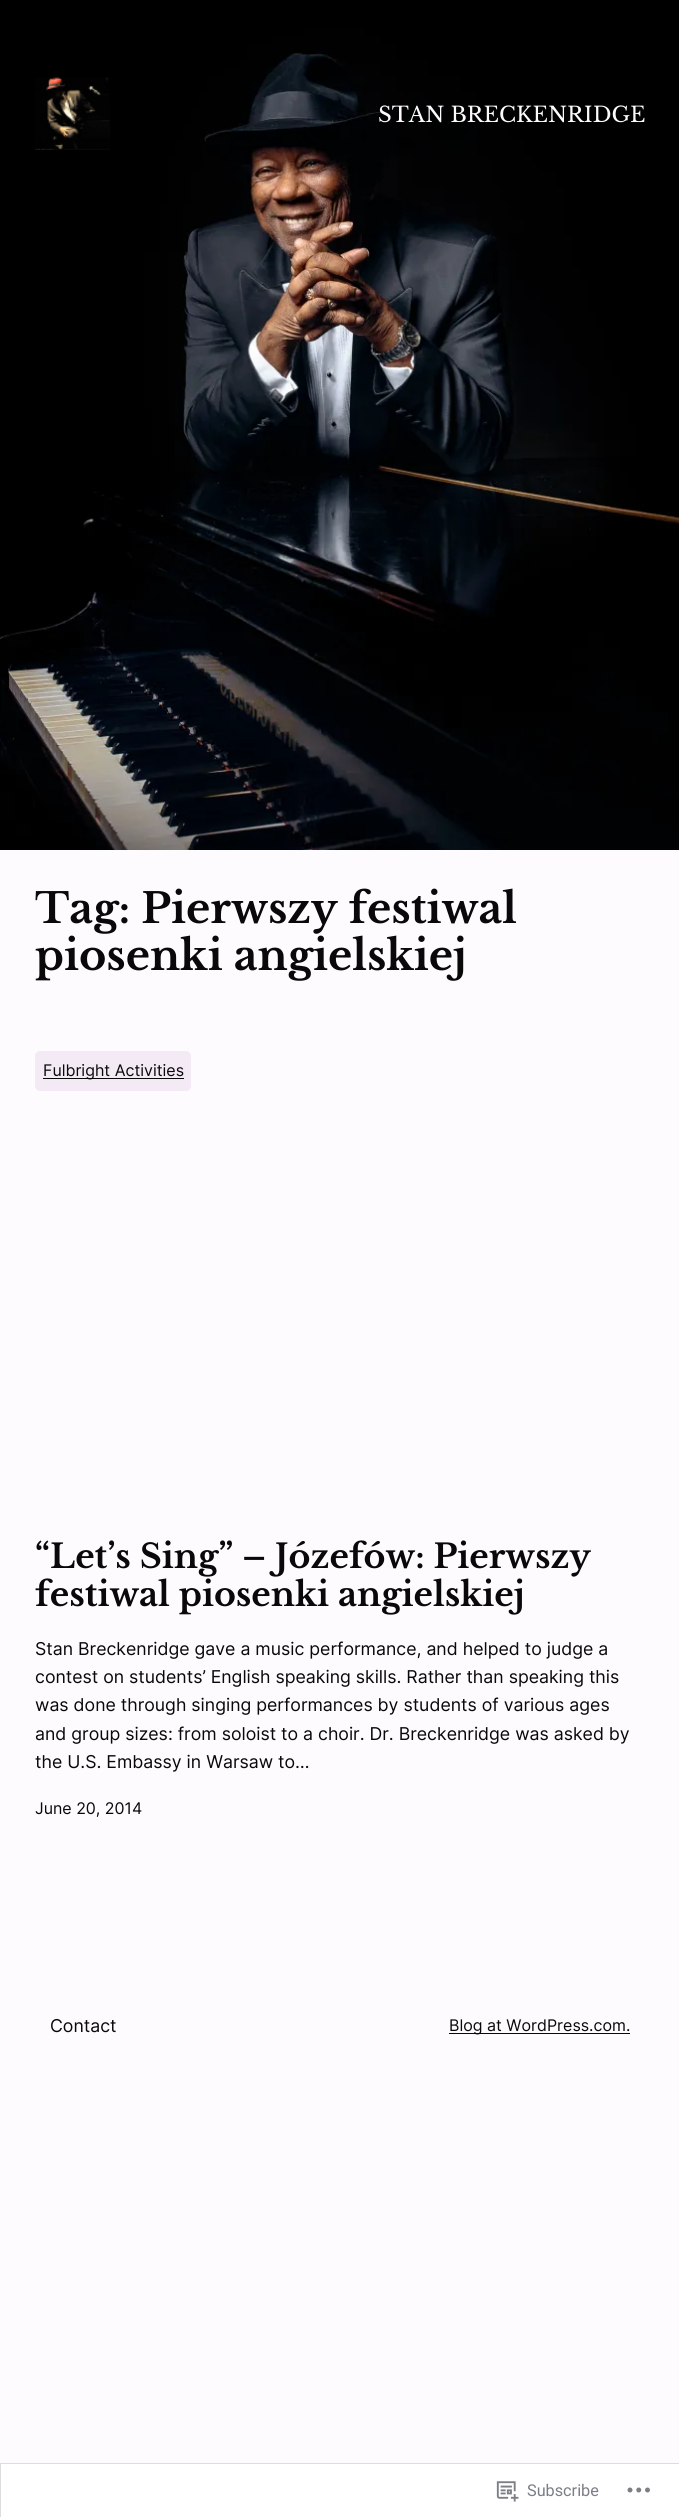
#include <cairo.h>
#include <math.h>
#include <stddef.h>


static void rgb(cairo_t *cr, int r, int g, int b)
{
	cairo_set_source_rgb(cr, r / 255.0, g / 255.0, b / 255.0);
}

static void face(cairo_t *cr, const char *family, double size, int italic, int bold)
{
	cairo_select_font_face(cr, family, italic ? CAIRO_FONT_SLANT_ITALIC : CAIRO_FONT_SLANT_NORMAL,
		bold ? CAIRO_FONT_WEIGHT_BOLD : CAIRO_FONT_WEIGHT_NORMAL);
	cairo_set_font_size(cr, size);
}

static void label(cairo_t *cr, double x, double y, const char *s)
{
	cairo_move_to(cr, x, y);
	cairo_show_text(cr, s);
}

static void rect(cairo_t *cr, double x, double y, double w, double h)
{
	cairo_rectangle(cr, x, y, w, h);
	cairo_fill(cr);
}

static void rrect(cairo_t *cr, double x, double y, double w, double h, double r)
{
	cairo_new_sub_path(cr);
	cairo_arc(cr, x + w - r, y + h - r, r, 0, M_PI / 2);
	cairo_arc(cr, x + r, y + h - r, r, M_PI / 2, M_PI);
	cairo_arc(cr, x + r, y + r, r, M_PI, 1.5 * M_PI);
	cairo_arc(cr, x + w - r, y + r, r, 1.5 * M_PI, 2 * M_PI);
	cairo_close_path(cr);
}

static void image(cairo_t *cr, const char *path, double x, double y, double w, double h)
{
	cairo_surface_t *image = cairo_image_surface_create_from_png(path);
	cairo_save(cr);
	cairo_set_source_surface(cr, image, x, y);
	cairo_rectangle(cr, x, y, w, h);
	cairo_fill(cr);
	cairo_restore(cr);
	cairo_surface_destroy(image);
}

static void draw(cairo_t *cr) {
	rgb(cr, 254, 251, 255);
	cairo_paint(cr);
	image(cr, "image0.png", 0, 0, 679, 850);
	image(cr, "image1.png", 35, 77, 75, 73);
	face(cr, "Libre Baskerville", 21.25, 0, 0);
	rgb(cr, 254, 251, 255);
	label(cr, 378, 122, "STAN BRECKENRIDGE");
	face(cr, "Libre Baskerville", 41.5, 0, 1);
	rgb(cr, 9, 9, 9);
	label(cr, 35, 923, "Tag: Pierwszy festiwal");
	label(cr, 35, 970, "piosenki angielskiej");
	rgb(cr, 243, 234, 245);
	rrect(cr, 35, 1051, 156, 40, 5);
	cairo_fill(cr);
	rgb(cr, 9, 9, 9);
	rect(cr, 43, 1078, 141, 1);
	face(cr, "Inter", 16, 0, 0);
	label(cr, 43, 1076, "Fulbright Activities");
	face(cr, "Libre Baskerville", 33.25, 0, 1);
	label(cr, 35, 1568, "“Let’s Sing” – Józefów: Pierwszy");
	label(cr, 35, 1606, "festiwal piosenki angielskiej");
	face(cr, "Inter", 17.7, 0, 0);
	label(cr, 35, 1655, "Stan Breckenridge gave a music performance, and helped to judge a");
	label(cr, 35, 1683, "contest on students’ English speaking skills. Rather than speaking this");
	label(cr, 35, 1711, "was done through singing performances by students of various ages");
	label(cr, 35, 1740, "and group sizes: from soloist to a choir. Dr. Breckenridge was asked by");
	label(cr, 35, 1768, "the U.S. Embassy in Warsaw to…");
	face(cr, "Inter", 16, 0, 0);
	label(cr, 35, 1814, "June 20, 2014");
	face(cr, "Inter", 17.7, 0, 0);
	label(cr, 50, 2032, "Contact");
	rect(cr, 449, 2033, 181, 1);
	face(cr, "Inter", 16, 0, 0);
	label(cr, 449, 2031, "Blog at WordPress.com.");
	rgb(cr, 255, 255, 255);
	cairo_rectangle(cr, 0.5, 2463.5, 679, 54);
	cairo_fill_preserve(cr);
	rgb(cr, 221, 221, 223);
	cairo_set_line_width(cr, 1);
	cairo_stroke(cr);
	image(cr, "image2.png", 496, 2481, 23, 21);
	face(cr, "Roboto", 16.25, 0, 0);
	rgb(cr, 123, 127, 133);
	label(cr, 527, 2496, "Subscribe");
	image(cr, "image3.png", 627, 2487, 23, 6);
}

int main(void) {
	cairo_surface_t *surface = cairo_image_surface_create(CAIRO_FORMAT_RGB24, 679, 2517);
	cairo_t *cr = cairo_create(surface);
	cairo_font_options_t *options = cairo_font_options_create();
	cairo_font_options_set_hint_metrics(options, CAIRO_HINT_METRICS_OFF);
	cairo_font_options_set_hint_style(options, CAIRO_HINT_STYLE_NONE);
	cairo_set_font_options(cr, options);
	cairo_set_miter_limit(cr, 4);
	draw(cr);
	cairo_surface_write_to_png(surface, "render.png");
	cairo_font_options_destroy(options);
	cairo_destroy(cr);
	cairo_surface_destroy(surface);
	return 0;
}
